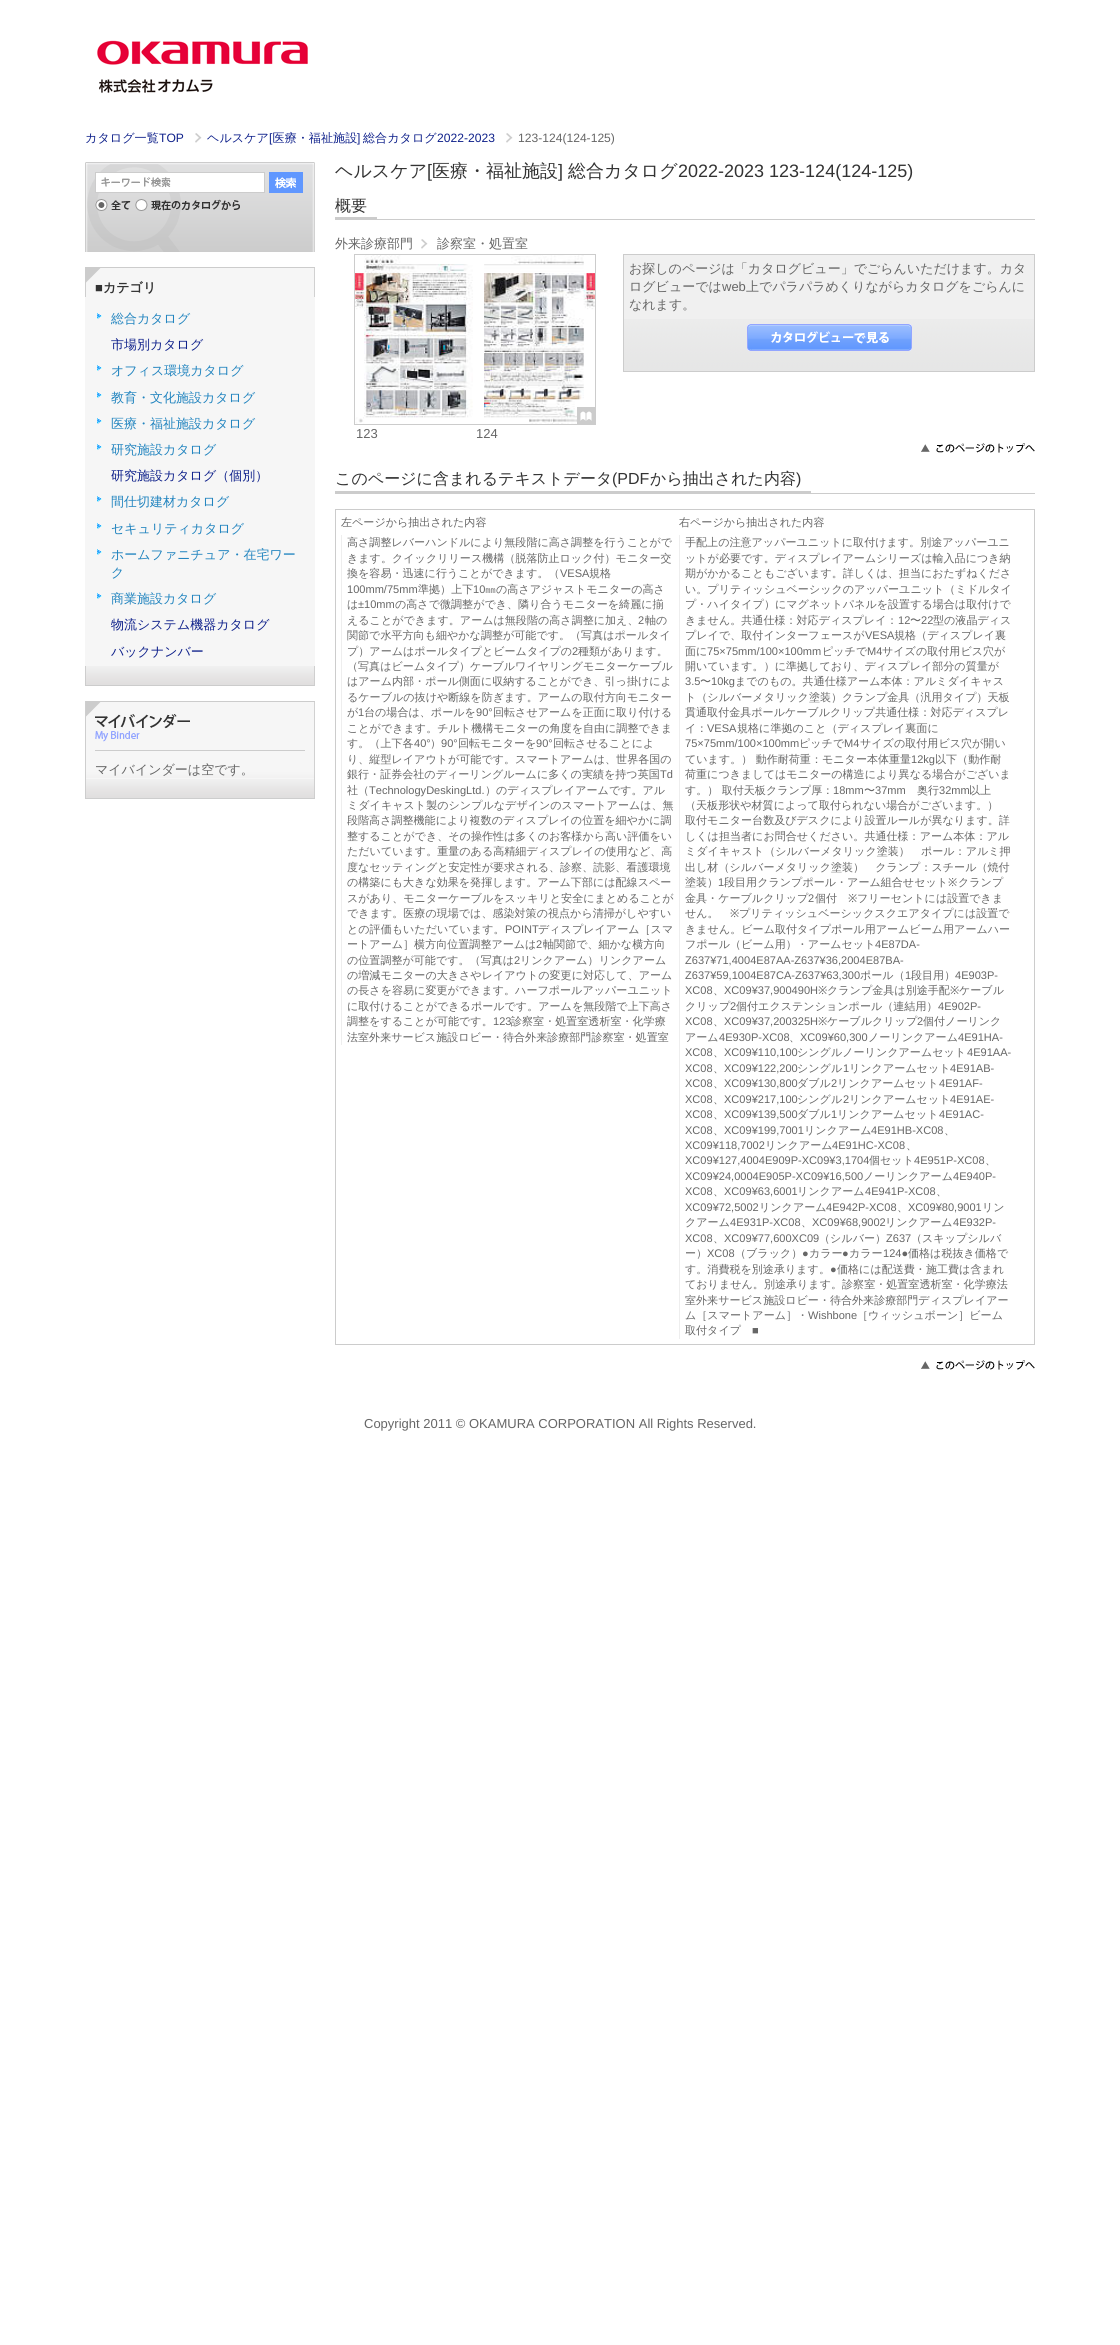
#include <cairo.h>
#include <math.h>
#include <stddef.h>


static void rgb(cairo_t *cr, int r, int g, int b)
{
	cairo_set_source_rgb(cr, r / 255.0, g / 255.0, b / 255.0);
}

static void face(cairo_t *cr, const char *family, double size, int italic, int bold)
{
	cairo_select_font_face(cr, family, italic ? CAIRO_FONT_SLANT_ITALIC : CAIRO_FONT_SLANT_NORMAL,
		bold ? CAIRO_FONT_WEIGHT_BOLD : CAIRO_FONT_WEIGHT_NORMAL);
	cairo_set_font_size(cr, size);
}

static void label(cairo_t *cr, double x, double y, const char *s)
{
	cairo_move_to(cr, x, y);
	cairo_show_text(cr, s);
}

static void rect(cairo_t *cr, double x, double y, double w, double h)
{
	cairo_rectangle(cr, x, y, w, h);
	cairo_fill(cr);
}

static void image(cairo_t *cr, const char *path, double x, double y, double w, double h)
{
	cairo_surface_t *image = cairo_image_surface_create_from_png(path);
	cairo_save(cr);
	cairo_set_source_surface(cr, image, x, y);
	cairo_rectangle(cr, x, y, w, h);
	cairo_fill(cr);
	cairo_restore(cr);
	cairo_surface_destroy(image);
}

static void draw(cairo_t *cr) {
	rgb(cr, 255, 255, 255);
	cairo_paint(cr);
	image(cr, "image0.png", 97, 40, 211, 53);
	face(cr, "WenQuanYi Zen Hei Medium", 12.1, 0, 0);
	rgb(cr, 15, 33, 139);
	label(cr, 85, 142, "カタログ一覧");
	face(cr, "Liberation Sans", 12.1, 0, 0);
	label(cr, 159, 142, "TOP");
	image(cr, "image1.png", 195, 133, 7, 10);
	face(cr, "WenQuanYi Zen Hei Medium", 12.1, 0, 0);
	label(cr, 207, 142, "ヘルスケア 医療・福祉施設");
	label(cr, 363, 142, "総合カタログ");
	face(cr, "Liberation Sans", 12.1, 0, 0);
	label(cr, 269, 142, "[");
	label(cr, 357, 142, "]");
	label(cr, 437, 142, "2022-2023");
	image(cr, "image1.png", 506, 133, 7, 10);
	rgb(cr, 102, 102, 102);
	label(cr, 518, 142, "123-124(124-125)");
	image(cr, "image2.png", 85, 162, 230, 90);
	rgb(cr, 255, 255, 255);
	rect(cr, 96, 173, 168, 19);
	image(cr, "image3.png", 101, 177, 70, 10);
	cairo_rectangle(cr, 95.5, 172.5, 169, 20);
	rgb(cr, 204, 204, 204);
	cairo_set_line_width(cr, 1);
	cairo_stroke(cr);
	image(cr, "image4.png", 269, 172, 34, 21);
	image(cr, "image5.png", 95, 199, 36, 12);
	image(cr, "image6.png", 135, 199, 105, 12);
	image(cr, "image7.png", 85, 666, 230, 20);
	image(cr, "image8.png", 85, 267, 230, 30);
	face(cr, "Liberation Sans", 13, 0, 1);
	rgb(cr, 51, 51, 51);
	label(cr, 95, 292, "■");
	face(cr, "WenQuanYi Zen Hei", 13, 0, 1);
	label(cr, 103, 292, "カテゴリ");
	rgb(cr, 246, 246, 246);
	rect(cr, 85, 297, 230, 369);
	image(cr, "image9.png", 97, 313, 5, 6);
	face(cr, "WenQuanYi Zen Hei Medium", 13, 0, 0);
	rgb(cr, 33, 132, 191);
	label(cr, 111, 323, "総合カタログ");
	rgb(cr, 15, 33, 139);
	label(cr, 111, 349, "市場別カタログ");
	image(cr, "image9.png", 97, 365, 5, 6);
	rgb(cr, 33, 132, 191);
	label(cr, 111, 375, "オフィス環境カタログ");
	image(cr, "image9.png", 97, 392, 5, 6);
	label(cr, 111, 402, "教育・文化施設カタログ");
	image(cr, "image9.png", 97, 418, 5, 6);
	label(cr, 111, 428, "医療・福祉施設カタログ");
	image(cr, "image9.png", 97, 444, 5, 6);
	label(cr, 111, 454, "研究施設カタログ");
	rgb(cr, 15, 33, 139);
	label(cr, 111, 480, "研究施設カタログ（個別）");
	image(cr, "image9.png", 97, 496, 5, 6);
	rgb(cr, 33, 132, 191);
	label(cr, 111, 506, "間仕切建材カタログ");
	image(cr, "image9.png", 97, 523, 5, 6);
	label(cr, 111, 533, "セキュリティカタログ");
	image(cr, "image9.png", 97, 549, 5, 6);
	label(cr, 111, 559, "ホームファニチュア・在宅ワー");
	label(cr, 111, 577, "ク");
	image(cr, "image9.png", 97, 593, 5, 6);
	label(cr, 111, 603, "商業施設カタログ");
	rgb(cr, 15, 33, 139);
	label(cr, 111, 629, "物流システム機器カタログ");
	label(cr, 111, 656, "バックナンバー");
	image(cr, "image10.png", 85, 701, 230, 98);
	image(cr, "image11.png", 86, 701, 229, 16);
	image(cr, "image12.png", 95, 714, 95, 28);
	rgb(cr, 204, 204, 204);
	rect(cr, 95, 750, 210, 1);
	rgb(cr, 246, 246, 246);
	rect(cr, 86, 778, 228, 1);
	rgb(cr, 102, 102, 102);
	label(cr, 95, 774, "マイバインダーは空です。");
	face(cr, "WenQuanYi Zen Hei Medium", 18, 0, 0);
	rgb(cr, 51, 51, 51);
	label(cr, 335, 177, "ヘルスケア");
	face(cr, "Liberation Sans", 18, 0, 0);
	label(cr, 427, 177, "[");
	face(cr, "WenQuanYi Zen Hei Medium", 18, 0, 0);
	label(cr, 432, 177, "医療・福祉施設");
	face(cr, "Liberation Sans", 18, 0, 0);
	label(cr, 558, 177, "]");
	face(cr, "WenQuanYi Zen Hei Medium", 18, 0, 0);
	label(cr, 568, 177, "総合カタログ");
	face(cr, "Liberation Sans", 18, 0, 0);
	label(cr, 678, 177, "2022-2023 123-124(124-125)");
	rgb(cr, 204, 204, 204);
	rect(cr, 335, 219, 700, 1);
	rect(cr, 335, 217, 42, 2);
	face(cr, "WenQuanYi Zen Hei Medium", 16, 0, 0);
	rgb(cr, 51, 51, 51);
	label(cr, 335, 211, "概要");
	face(cr, "WenQuanYi Zen Hei Medium", 13, 0, 0);
	rgb(cr, 102, 102, 102);
	label(cr, 335, 248, "外来診療部門");
	image(cr, "image1.png", 421, 239, 7, 10);
	label(cr, 437, 248, "診察室・処置室");
	rgb(cr, 240, 240, 240);
	rect(cr, 624, 255, 410, 64);
	image(cr, "image13.png", 624, 319, 410, 52);
	cairo_rectangle(cr, 623.5, 254.5, 411, 117);
	rgb(cr, 204, 204, 204);
	cairo_stroke(cr);
	rgb(cr, 102, 102, 102);
	label(cr, 629, 273, "お探しのページは「カタログビュー」でごらんいただけます。カタ");
	label(cr, 629, 291, "ログビューでは");
	face(cr, "Liberation Sans", 13, 0, 0);
	label(cr, 722, 291, "web");
	face(cr, "WenQuanYi Zen Hei Medium", 13, 0, 0);
	label(cr, 746, 291, "上でパラパラめくりながらカタログをごらんに");
	label(cr, 629, 309, "なれます。");
	image(cr, "image14.png", 747, 324, 165, 27);
	cairo_rectangle(cr, 354.5, 254.5, 241, 170);
	rgb(cr, 204, 204, 204);
	cairo_stroke(cr);
	image(cr, "image15.png", 355, 255, 120, 169);
	image(cr, "image16.png", 475, 255, 120, 169);
	image(cr, "image17.png", 577, 407, 18, 17);
	face(cr, "Liberation Sans", 13, 0, 0);
	rgb(cr, 102, 102, 102);
	label(cr, 356, 438, "123");
	label(cr, 476, 438, "124");
	image(cr, "image18.png", 921, 443, 114, 10);
	rgb(cr, 204, 204, 204);
	rect(cr, 335, 493, 700, 1);
	rect(cr, 335, 491, 476, 2);
	face(cr, "WenQuanYi Zen Hei Medium", 16, 0, 0);
	rgb(cr, 51, 51, 51);
	label(cr, 335, 484, "このページに含まれるテキストデータ");
	face(cr, "Liberation Sans", 16, 0, 0);
	label(cr, 612, 484, "(PDF");
	face(cr, "WenQuanYi Zen Hei Medium", 16, 0, 0);
	label(cr, 650, 484, "から抽出された内容");
	face(cr, "Liberation Sans", 16, 0, 0);
	label(cr, 796, 484, ")");
	cairo_rectangle(cr, 335.5, 509.5, 699, 835);
	rgb(cr, 204, 204, 204);
	cairo_stroke(cr);
	face(cr, "WenQuanYi Zen Hei Medium", 11.05, 0, 0);
	rgb(cr, 102, 102, 102);
	label(cr, 341, 526, "左ページから抽出された内容");
	rgb(cr, 238, 238, 238);
	rect(cr, 341, 535, 1, 510);
	rgb(cr, 102, 102, 102);
	label(cr, 347, 546, "高さ調整レバーハンドルにより無段階に高さ調整を行うことがで");
	label(cr, 347, 562, "きます。クイックリリース機構（脱落防止ロック付）モニター交");
	label(cr, 347, 577, "換を容易・迅速に行うことができます。（");
	face(cr, "Liberation Sans", 11.05, 0, 0);
	label(cr, 560, 577, "VESA");
	face(cr, "WenQuanYi Zen Hei Medium", 11.05, 0, 0);
	label(cr, 589, 577, "規格");
	face(cr, "Liberation Sans", 11.05, 0, 0);
	label(cr, 347, 593, "100mm/75mm");
	face(cr, "WenQuanYi Zen Hei Medium", 11.05, 0, 0);
	label(cr, 418, 593, "準拠）上下");
	face(cr, "Liberation Sans", 11.05, 0, 0);
	label(cr, 473, 593, "10");
	face(cr, "WenQuanYi Zen Hei Medium", 11.05, 0, 0);
	label(cr, 485, 593, "㎜の高さアジャストモニターの高さ");
	label(cr, 347, 608, "は");
	face(cr, "Liberation Sans", 11.05, 0, 0);
	label(cr, 358, 608, "±10mm");
	face(cr, "WenQuanYi Zen Hei Medium", 11.05, 0, 0);
	label(cr, 395, 608, "の高さで微調整ができ、隣り合うモニターを綺麗に揃");
	label(cr, 347, 624, "えることができます。アームは無段階の高さ調整に加え、");
	face(cr, "Liberation Sans", 11.05, 0, 0);
	label(cr, 638, 624, "2");
	face(cr, "WenQuanYi Zen Hei Medium", 11.05, 0, 0);
	label(cr, 645, 624, "軸の");
	label(cr, 347, 639, "関節で水平方向も細やかな調整が可能です。（写真はポールタイ");
	label(cr, 347, 655, "プ）アームはポールタイプとビームタイプの");
	face(cr, "Liberation Sans", 11.05, 0, 0);
	label(cr, 572, 655, "2");
	face(cr, "WenQuanYi Zen Hei Medium", 11.05, 0, 0);
	label(cr, 578, 655, "種類があります。");
	label(cr, 347, 670, "（写真はビームタイプ）ケーブルワイヤリングモニターケーブル");
	label(cr, 347, 685, "はアーム内部・ポール側面に収納することができ、引っ掛けによ");
	label(cr, 347, 701, "るケーブルの抜けや断線を防ぎます。アームの取付方向モニター");
	label(cr, 347, 716, "が");
	face(cr, "Liberation Sans", 11.05, 0, 0);
	label(cr, 358, 716, "1");
	face(cr, "WenQuanYi Zen Hei Medium", 11.05, 0, 0);
	label(cr, 364, 716, "台の場合は、ポールを");
	face(cr, "Liberation Sans", 11.05, 0, 0);
	label(cr, 476, 716, "90°");
	face(cr, "WenQuanYi Zen Hei Medium", 11.05, 0, 0);
	label(cr, 493, 716, "回転させアームを正面に取り付ける");
	label(cr, 347, 732, "ことができます。チルト機構モニターの角度を自由に調整できま");
	label(cr, 347, 747, "す。（上下各");
	face(cr, "Liberation Sans", 11.05, 0, 0);
	label(cr, 414, 747, "40°");
	face(cr, "WenQuanYi Zen Hei Medium", 11.05, 0, 0);
	label(cr, 430, 747, "）");
	face(cr, "Liberation Sans", 11.05, 0, 0);
	label(cr, 441, 747, "90°");
	face(cr, "WenQuanYi Zen Hei Medium", 11.05, 0, 0);
	label(cr, 458, 747, "回転モニターを");
	face(cr, "Liberation Sans", 11.05, 0, 0);
	label(cr, 536, 747, "90°");
	face(cr, "WenQuanYi Zen Hei Medium", 11.05, 0, 0);
	label(cr, 553, 747, "回転させることによ");
	label(cr, 347, 763, "り、縦型レイアウトが可能です。スマートアームは、世界各国の");
	label(cr, 347, 778, "銀行・証券会社のディーリングルームに多くの実績を持つ英国");
	face(cr, "Liberation Sans", 11.05, 0, 0);
	label(cr, 660, 778, "Td");
	face(cr, "WenQuanYi Zen Hei Medium", 11.05, 0, 0);
	label(cr, 347, 794, "社（");
	face(cr, "Liberation Sans", 11.05, 0, 0);
	label(cr, 369, 794, "TechnologyDeskingLtd.");
	face(cr, "WenQuanYi Zen Hei Medium", 11.05, 0, 0);
	label(cr, 485, 794, "）のディスプレイアームです。アル");
	label(cr, 347, 809, "ミダイキャスト製のシンプルなデザインのスマートアームは、無");
	label(cr, 347, 824, "段階高さ調整機能により複数のディスプレイの位置を細やかに調");
	label(cr, 347, 840, "整することができ、その操作性は多くのお客様から高い評価をい");
	label(cr, 347, 855, "ただいています。重量のある高精細ディスプレイの使用など、高");
	label(cr, 347, 871, "度なセッティングと安定性が要求される、診察、読影、看護環境");
	label(cr, 347, 886, "の構築にも大きな効果を発揮します。アーム下部には配線スペー");
	label(cr, 347, 902, "スがあり、モニターケーブルをスッキリと安全にまとめることが");
	label(cr, 347, 917, "できます。医療の現場では、感染対策の視点から清掃がしやすい");
	label(cr, 347, 933, "との評価もいただいています。");
	face(cr, "Liberation Sans", 11.05, 0, 0);
	label(cr, 505, 933, "POINT");
	face(cr, "WenQuanYi Zen Hei Medium", 11.05, 0, 0);
	label(cr, 538, 933, "ディスプレイアーム［スマ");
	label(cr, 347, 948, "ートアーム］横方向位置調整アームは");
	face(cr, "Liberation Sans", 11.05, 0, 0);
	label(cr, 536, 948, "2");
	face(cr, "WenQuanYi Zen Hei Medium", 11.05, 0, 0);
	label(cr, 543, 948, "軸関節で、細かな横方向");
	label(cr, 347, 964, "の位置調整が可能です。（写真は");
	face(cr, "Liberation Sans", 11.05, 0, 0);
	label(cr, 514, 964, "2");
	face(cr, "WenQuanYi Zen Hei Medium", 11.05, 0, 0);
	label(cr, 520, 964, "リンクアーム）リンクアーム");
	label(cr, 347, 979, "の増減モニターの大きさやレイアウトの変更に対応して、アーム");
	label(cr, 347, 994, "の長さを容易に変更ができます。ハーフポールアッパーユニット");
	label(cr, 347, 1010, "に取付けることができるポールです。アームを無段階で上下高さ");
	label(cr, 347, 1025, "調整をすることが可能です。");
	face(cr, "Liberation Sans", 11.05, 0, 0);
	label(cr, 493, 1025, "123");
	face(cr, "WenQuanYi Zen Hei Medium", 11.05, 0, 0);
	label(cr, 511, 1025, "診察室・処置室透析室・化学療");
	label(cr, 347, 1041, "法室外来サービス施設ロビー・待合外来診療部門診察室・処置室");
	label(cr, 679, 526, "右ページから抽出された内容");
	rgb(cr, 238, 238, 238);
	rect(cr, 679, 535, 1, 804);
	rgb(cr, 102, 102, 102);
	label(cr, 685, 546, "手配上の注意アッパーユニットに取付けます。別途アッパーユニ");
	label(cr, 685, 562, "ットが必要です。ディスプレイアームシリーズは輸入品につき納");
	label(cr, 685, 577, "期がかかることもございます。詳しくは、担当におたずねくださ");
	label(cr, 685, 593, "い。プリティッシュベーシックのアッパーユニット（ミドルタイ");
	label(cr, 685, 608, "プ・ハイタイプ）にマグネットパネルを設置する場合は取付けで");
	label(cr, 685, 624, "きません。共通仕様：対応ディスプレイ：");
	face(cr, "Liberation Sans", 11.05, 0, 0);
	label(cr, 898, 624, "12");
	face(cr, "WenQuanYi Zen Hei Medium", 11.05, 0, 0);
	label(cr, 910, 624, "〜");
	face(cr, "Liberation Sans", 11.05, 0, 0);
	label(cr, 921, 624, "22");
	face(cr, "WenQuanYi Zen Hei Medium", 11.05, 0, 0);
	label(cr, 933, 624, "型の液晶ディス");
	label(cr, 685, 639, "プレイで、取付インターフェースが");
	face(cr, "Liberation Sans", 11.05, 0, 0);
	label(cr, 865, 639, "VESA");
	face(cr, "WenQuanYi Zen Hei Medium", 11.05, 0, 0);
	label(cr, 894, 639, "規格（ディスプレイ裏");
	label(cr, 685, 655, "面に");
	face(cr, "Liberation Sans", 11.05, 0, 0);
	label(cr, 707, 655, "75×75mm/100×100mm");
	face(cr, "WenQuanYi Zen Hei Medium", 11.05, 0, 0);
	label(cr, 822, 655, "ピッチで");
	face(cr, "Liberation Sans", 11.05, 0, 0);
	label(cr, 867, 655, "M4");
	face(cr, "WenQuanYi Zen Hei Medium", 11.05, 0, 0);
	label(cr, 882, 655, "サイズの取付用ビス穴が");
	label(cr, 685, 670, "開いています。）に準拠しており、ディスプレイ部分の質量が");
	face(cr, "Liberation Sans", 11.05, 0, 0);
	label(cr, 685, 685, "3.5");
	face(cr, "WenQuanYi Zen Hei Medium", 11.05, 0, 0);
	label(cr, 700, 685, "〜");
	face(cr, "Liberation Sans", 11.05, 0, 0);
	label(cr, 711, 685, "10kg");
	face(cr, "WenQuanYi Zen Hei Medium", 11.05, 0, 0);
	label(cr, 735, 685, "までのもの。共通仕様アーム本体：アルミダイキャス");
	label(cr, 685, 701, "ト（シルバーメタリック塗装）クランプ金具（汎用タイプ）天板");
	label(cr, 685, 716, "貫通取付金具ポールケーブルクリップ共通仕様：対応ディスプレ");
	label(cr, 685, 732, "イ：");
	face(cr, "Liberation Sans", 11.05, 0, 0);
	label(cr, 707, 732, "VESA");
	face(cr, "WenQuanYi Zen Hei Medium", 11.05, 0, 0);
	label(cr, 737, 732, "規格に準拠のこと（ディスプレイ裏面に");
	face(cr, "Liberation Sans", 11.05, 0, 0);
	label(cr, 685, 747, "75×75mm/100×100mm");
	face(cr, "WenQuanYi Zen Hei Medium", 11.05, 0, 0);
	label(cr, 799, 747, "ピッチで");
	face(cr, "Liberation Sans", 11.05, 0, 0);
	label(cr, 844, 747, "M4");
	face(cr, "WenQuanYi Zen Hei Medium", 11.05, 0, 0);
	label(cr, 860, 747, "サイズの取付用ビス穴が開い");
	label(cr, 685, 763, "ています。） 動作耐荷重：モニター本体重量");
	face(cr, "Liberation Sans", 11.05, 0, 0);
	label(cr, 911, 763, "12kg");
	face(cr, "WenQuanYi Zen Hei Medium", 11.05, 0, 0);
	label(cr, 935, 763, "以下（動作耐");
	label(cr, 685, 778, "荷重につきましてはモニターの構造により異なる場合がございま");
	label(cr, 685, 794, "す。） 取付天板クランプ厚：");
	face(cr, "Liberation Sans", 11.05, 0, 0);
	label(cr, 833, 794, "18mm");
	face(cr, "WenQuanYi Zen Hei Medium", 11.05, 0, 0);
	label(cr, 864, 794, "〜");
	face(cr, "Liberation Sans", 11.05, 0, 0);
	label(cr, 875, 794, "37mm");
	face(cr, "WenQuanYi Zen Hei Medium", 11.05, 0, 0);
	label(cr, 917, 794, "奥行");
	face(cr, "Liberation Sans", 11.05, 0, 0);
	label(cr, 939, 794, "32mm");
	face(cr, "WenQuanYi Zen Hei Medium", 11.05, 0, 0);
	label(cr, 969, 794, "以上");
	label(cr, 685, 809, "（天板形状や材質によって取付られない場合がございます。）");
	label(cr, 685, 824, "取付モニター台数及びデスクにより設置ルールが異なります。詳");
	label(cr, 685, 840, "しくは担当者にお問合せください。共通仕様：アーム本体：アル");
	label(cr, 685, 855, "ミダイキャスト（シルバーメタリック塗装）　ポール：アルミ押");
	label(cr, 685, 871, "出し材（シルバーメタリック塗装）　クランプ：スチール（焼付");
	label(cr, 685, 886, "塗装）");
	face(cr, "Liberation Sans", 11.05, 0, 0);
	label(cr, 718, 886, "1");
	face(cr, "WenQuanYi Zen Hei Medium", 11.05, 0, 0);
	label(cr, 724, 886, "段目用クランプポール・アーム組合せセット");
	face(cr, "Noto Sans", 11.05, 0, 0);
	label(cr, 948, 886, "※");
	face(cr, "WenQuanYi Zen Hei Medium", 11.05, 0, 0);
	label(cr, 958, 886, "クランプ");
	label(cr, 685, 902, "金具・ケーブルクリップ");
	face(cr, "Liberation Sans", 11.05, 0, 0);
	label(cr, 808, 902, "2");
	face(cr, "WenQuanYi Zen Hei Medium", 11.05, 0, 0);
	label(cr, 815, 902, "個付");
	face(cr, "Noto Sans", 11.05, 0, 0);
	label(cr, 848, 902, "※");
	face(cr, "WenQuanYi Zen Hei Medium", 11.05, 0, 0);
	label(cr, 857, 902, "フリーセントには設置できま");
	label(cr, 685, 917, "せん。");
	face(cr, "Noto Sans", 11.05, 0, 0);
	label(cr, 730, 917, "※");
	face(cr, "WenQuanYi Zen Hei Medium", 11.05, 0, 0);
	label(cr, 739, 917, "プリティッシュベーシックスクエアタイプには設置で");
	label(cr, 685, 933, "きません。ビーム取付タイプポール用アームビーム用アームハー");
	label(cr, 685, 948, "フポール（ビーム用）・アームセット");
	face(cr, "Liberation Sans", 11.05, 0, 0);
	label(cr, 875, 948, "4E87DA-");
	label(cr, 685, 964, "Z637¥71,4004E87AA-Z637¥36,2004E87BA-");
	label(cr, 685, 979, "Z637¥59,1004E87CA-Z637¥63,300");
	face(cr, "WenQuanYi Zen Hei Medium", 11.05, 0, 0);
	label(cr, 860, 979, "ポール（");
	face(cr, "Liberation Sans", 11.05, 0, 0);
	label(cr, 905, 979, "1");
	face(cr, "WenQuanYi Zen Hei Medium", 11.05, 0, 0);
	label(cr, 911, 979, "段目用）");
	face(cr, "Liberation Sans", 11.05, 0, 0);
	label(cr, 955, 979, "4E903P-");
	label(cr, 685, 994, "XC08");
	face(cr, "WenQuanYi Zen Hei Medium", 11.05, 0, 0);
	label(cr, 713, 994, "、");
	face(cr, "Liberation Sans", 11.05, 0, 0);
	label(cr, 724, 994, "XC09¥37,900490H");
	face(cr, "Noto Sans", 11.05, 0, 0);
	label(cr, 818, 994, "※");
	face(cr, "WenQuanYi Zen Hei Medium", 11.05, 0, 0);
	label(cr, 827, 994, "クランプ金具は別途手配");
	face(cr, "Noto Sans", 11.05, 0, 0);
	label(cr, 950, 994, "※");
	face(cr, "WenQuanYi Zen Hei Medium", 11.05, 0, 0);
	label(cr, 959, 994, "ケーブル");
	label(cr, 685, 1010, "クリップ");
	face(cr, "Liberation Sans", 11.05, 0, 0);
	label(cr, 730, 1010, "2");
	face(cr, "WenQuanYi Zen Hei Medium", 11.05, 0, 0);
	label(cr, 736, 1010, "個付エクステンションポール（連結用）");
	face(cr, "Liberation Sans", 11.05, 0, 0);
	label(cr, 938, 1010, "4E902P-");
	label(cr, 685, 1025, "XC08");
	label(cr, 724, 1025, "XC09¥37,200325H");
	face(cr, "Noto Sans", 11.05, 0, 0);
	label(cr, 818, 1025, "※");
	face(cr, "WenQuanYi Zen Hei Medium", 11.05, 0, 0);
	label(cr, 827, 1025, "ケーブルクリップ");
	face(cr, "Liberation Sans", 11.05, 0, 0);
	label(cr, 917, 1025, "2");
	face(cr, "WenQuanYi Zen Hei Medium", 11.05, 0, 0);
	label(cr, 923, 1025, "個付ノーリンク");
	label(cr, 713, 1025, "、");
	label(cr, 685, 1041, "アーム");
	face(cr, "Liberation Sans", 11.05, 0, 0);
	label(cr, 719, 1041, "4E930P-XC08");
	face(cr, "WenQuanYi Zen Hei Medium", 11.05, 0, 0);
	label(cr, 789, 1041, "、");
	face(cr, "Liberation Sans", 11.05, 0, 0);
	label(cr, 800, 1041, "XC09¥60,300");
	face(cr, "WenQuanYi Zen Hei Medium", 11.05, 0, 0);
	label(cr, 868, 1041, "ノーリンクアーム");
	face(cr, "Liberation Sans", 11.05, 0, 0);
	label(cr, 958, 1041, "4E91HA-");
	label(cr, 685, 1056, "XC08");
	face(cr, "WenQuanYi Zen Hei Medium", 11.05, 0, 0);
	label(cr, 713, 1056, "、");
	face(cr, "Liberation Sans", 11.05, 0, 0);
	label(cr, 724, 1056, "XC09¥110,100");
	face(cr, "WenQuanYi Zen Hei Medium", 11.05, 0, 0);
	label(cr, 797, 1056, "シングルノーリンクアームセット");
	face(cr, "Liberation Sans", 11.05, 0, 0);
	label(cr, 967, 1056, "4E91AA-");
	label(cr, 685, 1072, "XC08");
	face(cr, "WenQuanYi Zen Hei Medium", 11.05, 0, 0);
	label(cr, 713, 1072, "、");
	face(cr, "Liberation Sans", 11.05, 0, 0);
	label(cr, 724, 1072, "XC09¥122,200");
	face(cr, "WenQuanYi Zen Hei Medium", 11.05, 0, 0);
	label(cr, 797, 1072, "シングル");
	face(cr, "Liberation Sans", 11.05, 0, 0);
	label(cr, 843, 1072, "1");
	face(cr, "WenQuanYi Zen Hei Medium", 11.05, 0, 0);
	label(cr, 849, 1072, "リンクアームセット");
	face(cr, "Liberation Sans", 11.05, 0, 0);
	label(cr, 950, 1072, "4E91AB-");
	label(cr, 685, 1087, "XC08");
	face(cr, "WenQuanYi Zen Hei Medium", 11.05, 0, 0);
	label(cr, 713, 1087, "、");
	face(cr, "Liberation Sans", 11.05, 0, 0);
	label(cr, 724, 1087, "XC09¥130,800");
	face(cr, "WenQuanYi Zen Hei Medium", 11.05, 0, 0);
	label(cr, 797, 1087, "ダブル");
	face(cr, "Liberation Sans", 11.05, 0, 0);
	label(cr, 831, 1087, "2");
	face(cr, "WenQuanYi Zen Hei Medium", 11.05, 0, 0);
	label(cr, 837, 1087, "リンクアームセット");
	face(cr, "Liberation Sans", 11.05, 0, 0);
	label(cr, 939, 1087, "4E91AF-");
	label(cr, 685, 1103, "XC08");
	face(cr, "WenQuanYi Zen Hei Medium", 11.05, 0, 0);
	label(cr, 713, 1103, "、");
	face(cr, "Liberation Sans", 11.05, 0, 0);
	label(cr, 724, 1103, "XC09¥217,100");
	face(cr, "WenQuanYi Zen Hei Medium", 11.05, 0, 0);
	label(cr, 797, 1103, "シングル");
	face(cr, "Liberation Sans", 11.05, 0, 0);
	label(cr, 843, 1103, "2");
	face(cr, "WenQuanYi Zen Hei Medium", 11.05, 0, 0);
	label(cr, 849, 1103, "リンクアームセット");
	face(cr, "Liberation Sans", 11.05, 0, 0);
	label(cr, 950, 1103, "4E91AE-");
	label(cr, 685, 1118, "XC08");
	face(cr, "WenQuanYi Zen Hei Medium", 11.05, 0, 0);
	label(cr, 713, 1118, "、");
	face(cr, "Liberation Sans", 11.05, 0, 0);
	label(cr, 724, 1118, "XC09¥139,500");
	face(cr, "WenQuanYi Zen Hei Medium", 11.05, 0, 0);
	label(cr, 797, 1118, "ダブル");
	face(cr, "Liberation Sans", 11.05, 0, 0);
	label(cr, 831, 1118, "1");
	face(cr, "WenQuanYi Zen Hei Medium", 11.05, 0, 0);
	label(cr, 837, 1118, "リンクアームセット");
	face(cr, "Liberation Sans", 11.05, 0, 0);
	label(cr, 939, 1118, "4E91AC-");
	label(cr, 685, 1134, "XC08");
	face(cr, "WenQuanYi Zen Hei Medium", 11.05, 0, 0);
	label(cr, 713, 1134, "、");
	face(cr, "Liberation Sans", 11.05, 0, 0);
	label(cr, 724, 1134, "XC09¥199,7001");
	face(cr, "WenQuanYi Zen Hei Medium", 11.05, 0, 0);
	label(cr, 804, 1134, "リンクアーム");
	face(cr, "Liberation Sans", 11.05, 0, 0);
	label(cr, 871, 1134, "4E91HB-XC08");
	face(cr, "WenQuanYi Zen Hei Medium", 11.05, 0, 0);
	label(cr, 944, 1134, "、");
	face(cr, "Liberation Sans", 11.05, 0, 0);
	label(cr, 685, 1149, "XC09¥118,7002");
	face(cr, "WenQuanYi Zen Hei Medium", 11.05, 0, 0);
	label(cr, 765, 1149, "リンクアーム");
	face(cr, "Liberation Sans", 11.05, 0, 0);
	label(cr, 832, 1149, "4E91HC-XC08");
	face(cr, "WenQuanYi Zen Hei Medium", 11.05, 0, 0);
	label(cr, 906, 1149, "、");
	face(cr, "Liberation Sans", 11.05, 0, 0);
	label(cr, 685, 1164, "XC09¥127,4004E909P-XC09¥3,1704");
	face(cr, "WenQuanYi Zen Hei Medium", 11.05, 0, 0);
	label(cr, 869, 1164, "個セット");
	face(cr, "Liberation Sans", 11.05, 0, 0);
	label(cr, 914, 1164, "4E951P-XC08");
	face(cr, "WenQuanYi Zen Hei Medium", 11.05, 0, 0);
	label(cr, 985, 1164, "、");
	face(cr, "Liberation Sans", 11.05, 0, 0);
	label(cr, 685, 1180, "XC09¥24,0004E905P-XC09¥16,500");
	face(cr, "WenQuanYi Zen Hei Medium", 11.05, 0, 0);
	label(cr, 863, 1180, "ノーリンクアーム");
	face(cr, "Liberation Sans", 11.05, 0, 0);
	label(cr, 953, 1180, "4E940P-");
	label(cr, 685, 1195, "XC08");
	face(cr, "WenQuanYi Zen Hei Medium", 11.05, 0, 0);
	label(cr, 713, 1195, "、");
	face(cr, "Liberation Sans", 11.05, 0, 0);
	label(cr, 724, 1195, "XC09¥63,6001");
	face(cr, "WenQuanYi Zen Hei Medium", 11.05, 0, 0);
	label(cr, 797, 1195, "リンクアーム");
	face(cr, "Liberation Sans", 11.05, 0, 0);
	label(cr, 865, 1195, "4E941P-XC08");
	face(cr, "WenQuanYi Zen Hei Medium", 11.05, 0, 0);
	label(cr, 936, 1195, "、");
	face(cr, "Liberation Sans", 11.05, 0, 0);
	label(cr, 685, 1211, "XC09¥72,5002");
	face(cr, "WenQuanYi Zen Hei Medium", 11.05, 0, 0);
	label(cr, 759, 1211, "リンクアーム");
	face(cr, "Liberation Sans", 11.05, 0, 0);
	label(cr, 826, 1211, "4E942P-XC08");
	face(cr, "WenQuanYi Zen Hei Medium", 11.05, 0, 0);
	label(cr, 897, 1211, "、");
	face(cr, "Liberation Sans", 11.05, 0, 0);
	label(cr, 908, 1211, "XC09¥80,9001");
	face(cr, "WenQuanYi Zen Hei Medium", 11.05, 0, 0);
	label(cr, 982, 1211, "リン");
	label(cr, 685, 1226, "クアーム");
	face(cr, "Liberation Sans", 11.05, 0, 0);
	label(cr, 730, 1226, "4E931P-XC08");
	face(cr, "WenQuanYi Zen Hei Medium", 11.05, 0, 0);
	label(cr, 801, 1226, "、");
	face(cr, "Liberation Sans", 11.05, 0, 0);
	label(cr, 812, 1226, "XC09¥68,9002");
	face(cr, "WenQuanYi Zen Hei Medium", 11.05, 0, 0);
	label(cr, 885, 1226, "リンクアーム");
	face(cr, "Liberation Sans", 11.05, 0, 0);
	label(cr, 953, 1226, "4E932P-");
	label(cr, 685, 1242, "XC08");
	face(cr, "WenQuanYi Zen Hei Medium", 11.05, 0, 0);
	label(cr, 713, 1242, "、");
	face(cr, "Liberation Sans", 11.05, 0, 0);
	label(cr, 724, 1242, "XC09¥77,600XC09");
	face(cr, "WenQuanYi Zen Hei Medium", 11.05, 0, 0);
	label(cr, 819, 1242, "（シルバー）");
	face(cr, "Liberation Sans", 11.05, 0, 0);
	label(cr, 886, 1242, "Z637");
	face(cr, "WenQuanYi Zen Hei Medium", 11.05, 0, 0);
	label(cr, 911, 1242, "（スキップシルバ");
	label(cr, 685, 1257, "ー）");
	face(cr, "Liberation Sans", 11.05, 0, 0);
	label(cr, 707, 1257, "XC08");
	face(cr, "WenQuanYi Zen Hei Medium", 11.05, 0, 0);
	label(cr, 735, 1257, "（ブラック）");
	face(cr, "Liberation Sans", 11.05, 0, 0);
	label(cr, 802, 1257, "●");
	face(cr, "WenQuanYi Zen Hei Medium", 11.05, 0, 0);
	label(cr, 809, 1257, "カラー");
	face(cr, "Liberation Sans", 11.05, 0, 0);
	label(cr, 842, 1257, "●");
	face(cr, "WenQuanYi Zen Hei Medium", 11.05, 0, 0);
	label(cr, 849, 1257, "カラー");
	face(cr, "Liberation Sans", 11.05, 0, 0);
	label(cr, 883, 1257, "124●");
	face(cr, "WenQuanYi Zen Hei Medium", 11.05, 0, 0);
	label(cr, 908, 1257, "価格は税抜き価格で");
	label(cr, 685, 1273, "す。消費税を別途承ります。");
	face(cr, "Liberation Sans", 11.05, 0, 0);
	label(cr, 830, 1273, "●");
	face(cr, "WenQuanYi Zen Hei Medium", 11.05, 0, 0);
	label(cr, 837, 1273, "価格には配送費・施工費は含まれ");
	label(cr, 685, 1288, "ておりません。別途承ります。診察室・処置室透析室・化学療法");
	label(cr, 685, 1304, "室外来サービス施設ロビー・待合外来診療部門ディスプレイアー");
	label(cr, 685, 1319, "ム［スマートアーム］・");
	face(cr, "Liberation Sans", 11.05, 0, 0);
	label(cr, 808, 1319, "Wishbone");
	face(cr, "WenQuanYi Zen Hei Medium", 11.05, 0, 0);
	label(cr, 857, 1319, "［ウィッシュボーン］ビーム");
	label(cr, 685, 1334, "取付タイプ");
	face(cr, "Liberation Sans", 11.05, 0, 0);
	label(cr, 752, 1334, "■");
	image(cr, "image18.png", 921, 1360, 114, 10);
	face(cr, "Liberation Sans", 13, 0, 0);
	label(cr, 364, 1428, "Copyright 2011 © OKAMURA CORPORATION All Rights Reserved.");
}

int main(void) {
	cairo_surface_t *surface = cairo_image_surface_create(CAIRO_FORMAT_RGB24, 1120, 2345);
	cairo_t *cr = cairo_create(surface);
	cairo_font_options_t *options = cairo_font_options_create();
	cairo_font_options_set_hint_metrics(options, CAIRO_HINT_METRICS_OFF);
	cairo_font_options_set_hint_style(options, CAIRO_HINT_STYLE_NONE);
	cairo_set_font_options(cr, options);
	cairo_set_miter_limit(cr, 4);
	draw(cr);
	cairo_surface_write_to_png(surface, "render.png");
	cairo_font_options_destroy(options);
	cairo_destroy(cr);
	cairo_surface_destroy(surface);
	return 0;
}
